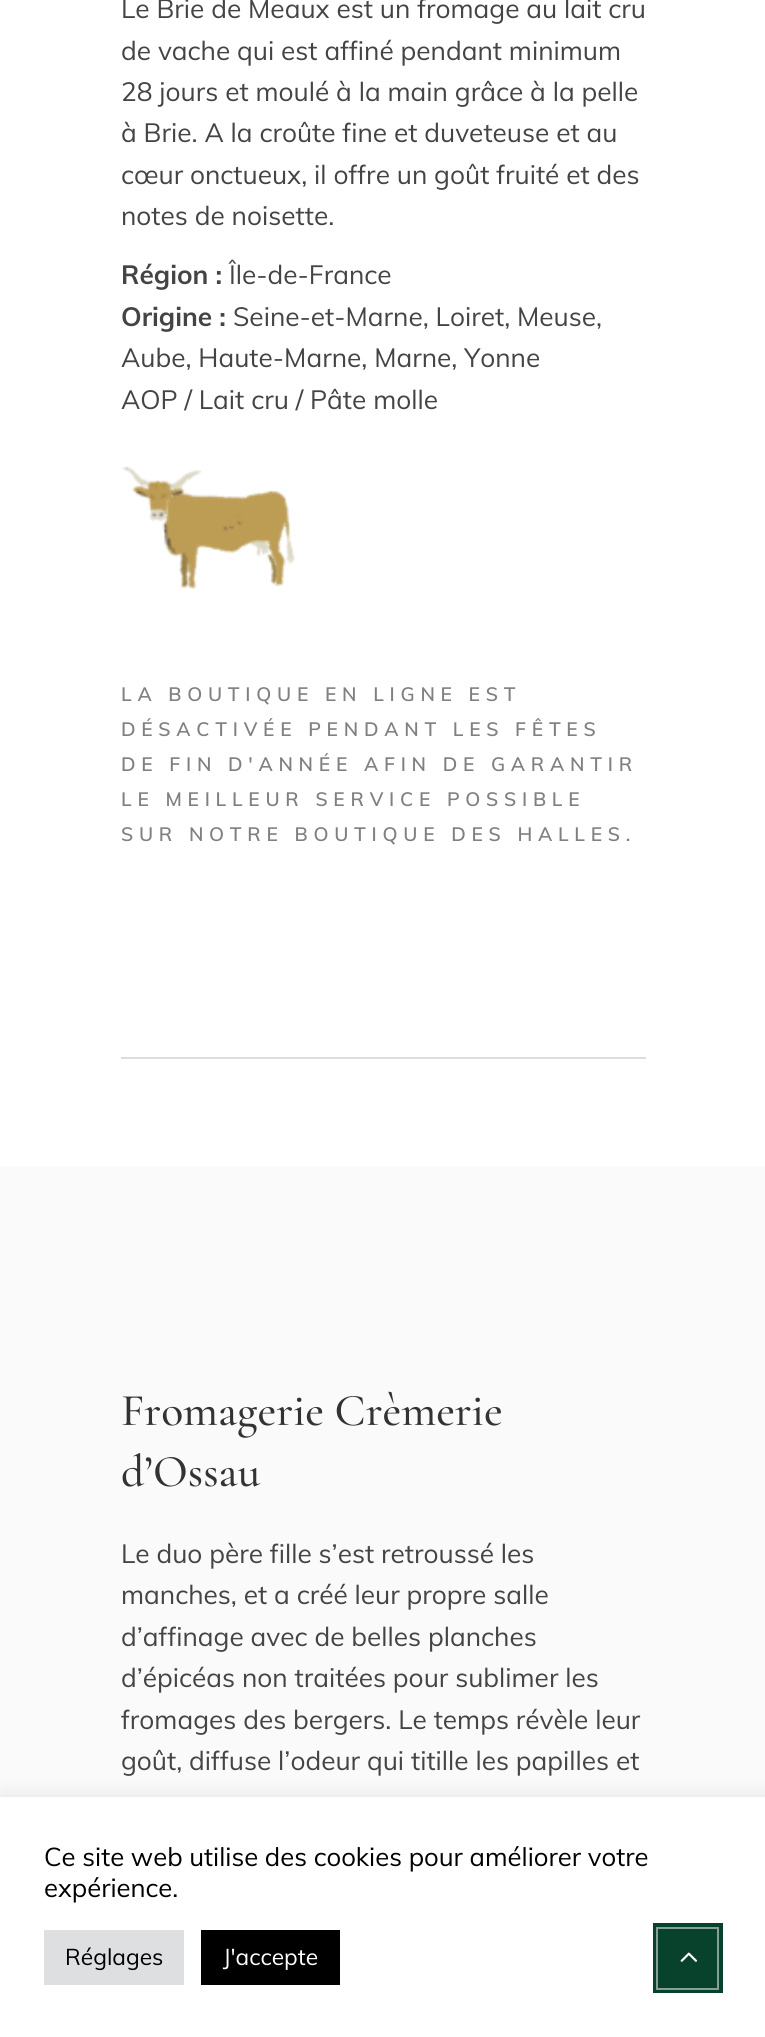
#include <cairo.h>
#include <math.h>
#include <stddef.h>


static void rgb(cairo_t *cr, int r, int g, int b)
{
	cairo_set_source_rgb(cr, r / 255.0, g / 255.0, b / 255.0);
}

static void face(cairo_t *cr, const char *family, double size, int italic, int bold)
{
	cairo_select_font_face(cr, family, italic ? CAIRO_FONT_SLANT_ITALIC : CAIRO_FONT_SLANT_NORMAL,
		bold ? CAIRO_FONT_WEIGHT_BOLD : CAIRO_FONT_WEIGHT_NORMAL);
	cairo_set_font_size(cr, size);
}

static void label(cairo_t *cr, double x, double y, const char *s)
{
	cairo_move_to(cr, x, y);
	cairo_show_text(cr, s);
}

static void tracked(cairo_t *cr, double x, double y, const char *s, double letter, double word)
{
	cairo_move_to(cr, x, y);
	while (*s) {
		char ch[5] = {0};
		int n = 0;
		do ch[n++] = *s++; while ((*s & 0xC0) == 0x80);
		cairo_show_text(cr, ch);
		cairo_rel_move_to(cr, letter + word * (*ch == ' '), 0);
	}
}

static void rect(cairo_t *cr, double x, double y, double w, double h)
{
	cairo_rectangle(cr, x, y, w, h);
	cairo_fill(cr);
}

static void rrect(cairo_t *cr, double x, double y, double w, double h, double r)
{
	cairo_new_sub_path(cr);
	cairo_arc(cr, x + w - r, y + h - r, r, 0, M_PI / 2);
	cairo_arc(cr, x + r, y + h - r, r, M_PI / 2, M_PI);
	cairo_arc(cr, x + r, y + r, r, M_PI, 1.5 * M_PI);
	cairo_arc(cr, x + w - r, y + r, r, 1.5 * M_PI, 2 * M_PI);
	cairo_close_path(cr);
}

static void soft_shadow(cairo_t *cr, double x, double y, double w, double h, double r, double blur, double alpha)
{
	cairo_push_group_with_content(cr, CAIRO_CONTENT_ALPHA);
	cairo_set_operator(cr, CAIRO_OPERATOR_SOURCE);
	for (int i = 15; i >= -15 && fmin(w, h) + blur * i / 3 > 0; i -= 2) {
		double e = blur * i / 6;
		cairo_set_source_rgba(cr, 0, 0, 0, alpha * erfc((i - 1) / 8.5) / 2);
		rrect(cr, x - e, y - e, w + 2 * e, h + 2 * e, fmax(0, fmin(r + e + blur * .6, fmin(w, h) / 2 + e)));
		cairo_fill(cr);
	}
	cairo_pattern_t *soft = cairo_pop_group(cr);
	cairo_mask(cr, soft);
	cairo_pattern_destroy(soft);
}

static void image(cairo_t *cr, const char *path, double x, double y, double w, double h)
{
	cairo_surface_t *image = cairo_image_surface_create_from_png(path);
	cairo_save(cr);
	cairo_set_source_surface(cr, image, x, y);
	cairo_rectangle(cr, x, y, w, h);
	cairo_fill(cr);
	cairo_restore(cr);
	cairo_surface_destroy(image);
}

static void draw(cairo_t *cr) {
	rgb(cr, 255, 255, 255);
	cairo_paint(cr);
	face(cr, "Muli", 26.25, 0, 0);
	rgb(cr, 68, 68, 68);
	label(cr, 121, 18, "Le Brie de Meaux est un fromage au lait cru");
	label(cr, 121, 60, "de vache qui est affiné pendant minimum");
	label(cr, 121, 101, "28 jours et moulé à la main grâce à la pelle");
	label(cr, 121, 142, "à Brie. A la croûte fine et duveteuse et au");
	label(cr, 121, 184, "cœur onctueux, il offre un goût fruité et des");
	label(cr, 121, 225, "notes de noisette.");
	face(cr, "Muli", 26.25, 0, 1);
	label(cr, 121, 284, "Région :");
	face(cr, "Muli", 26.25, 0, 0);
	label(cr, 229, 284, "Île-de-France");
	face(cr, "Muli", 26.25, 0, 1);
	label(cr, 121, 326, "Origine :");
	face(cr, "Muli", 26.25, 0, 0);
	label(cr, 233, 326, "Seine-et-Marne, Loiret, Meuse,");
	label(cr, 121, 367, "Aube, Haute-Marne, Marne, Yonne");
	label(cr, 121, 409, "AOP / Lait cru / Pâte molle");
	image(cr, "image0.png", 121, 466, 175, 124);
	face(cr, "Muli SemiBold", 19.25, 0, 0);
	rgb(cr, 128, 128, 128);
	tracked(cr, 121, 701, "LA BOUTIQUE EN LIGNE EST", 5.75, 0);
	tracked(cr, 121, 736, "DÉSACTIVÉE PENDANT LES FÊTES", 5.75, 0);
	tracked(cr, 121, 771, "DE FIN D'ANNÉE AFIN DE GARANTIR", 5.75, 0);
	tracked(cr, 121, 806, "LE MEILLEUR SERVICE POSSIBLE", 5.75, 0);
	tracked(cr, 121, 841, "SUR NOTRE BOUTIQUE DES HALLES.", 5.75, 0);
	rgb(cr, 221, 221, 221);
	rect(cr, 121, 1057, 525, 2);
	rgb(cr, 250, 250, 250);
	rect(cr, 0, 1166, 765, 631);
	face(cr, "Cormorant Garamond Medium", 45.5, 0, 0);
	rgb(cr, 51, 51, 51);
	label(cr, 121, 1425, "Fromagerie Crèmerie");
	label(cr, 121, 1486, "d’Ossau");
	face(cr, "Muli", 26.25, 0, 0);
	rgb(cr, 68, 68, 68);
	label(cr, 121, 1563, "Le duo père fille s’est retroussé les");
	label(cr, 121, 1604, "manches, et a créé leur propre salle");
	label(cr, 121, 1646, "d’affinage avec de belles planches");
	label(cr, 121, 1687, "d’épicéas non traitées pour sublimer les");
	label(cr, 121, 1729, "fromages des bergers. Le temps révèle leur");
	label(cr, 121, 1770, "goût, diffuse l’odeur qui titille les papilles et");
	rgb(cr, 172, 171, 171);
	soft_shadow(cr, 0, 1796, 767, 239, 0, 9, 0.3);
	rgb(cr, 255, 255, 255);
	rect(cr, 0, 1797, 765, 240);
	rgb(cr, 8, 66, 44);
	rect(cr, 653, 1923, 70, 70);
	cairo_rectangle(cr, 657, 1928, 61, 61);
	rgb(cr, 132, 161, 150);
	cairo_stroke(cr);
	image(cr, "image1.png", 680, 1952, 17, 10);
	face(cr, "Muli", 25.7, 0, 0);
	rgb(cr, 0, 0, 0);
	label(cr, 44, 1866, "Ce site web utilise des cookies pour améliorer votre");
	label(cr, 44, 1897, "expérience.");
	rgb(cr, 222, 223, 224);
	rect(cr, 44, 1930, 140, 55);
	face(cr, "Muli", 22.75, 0, 0);
	rgb(cr, 0, 0, 0);
	label(cr, 65, 1965, "Réglages");
	rect(cr, 201, 1930, 139, 55);
	rgb(cr, 255, 255, 255);
	label(cr, 223, 1965, "J'accepte");
}

int main(void) {
	cairo_surface_t *surface = cairo_image_surface_create(CAIRO_FORMAT_RGB24, 765, 2037);
	cairo_t *cr = cairo_create(surface);
	cairo_font_options_t *options = cairo_font_options_create();
	cairo_font_options_set_hint_metrics(options, CAIRO_HINT_METRICS_OFF);
	cairo_font_options_set_hint_style(options, CAIRO_HINT_STYLE_NONE);
	cairo_set_font_options(cr, options);
	cairo_set_miter_limit(cr, 4);
	draw(cr);
	cairo_surface_write_to_png(surface, "render.png");
	cairo_font_options_destroy(options);
	cairo_destroy(cr);
	cairo_surface_destroy(surface);
	return 0;
}
